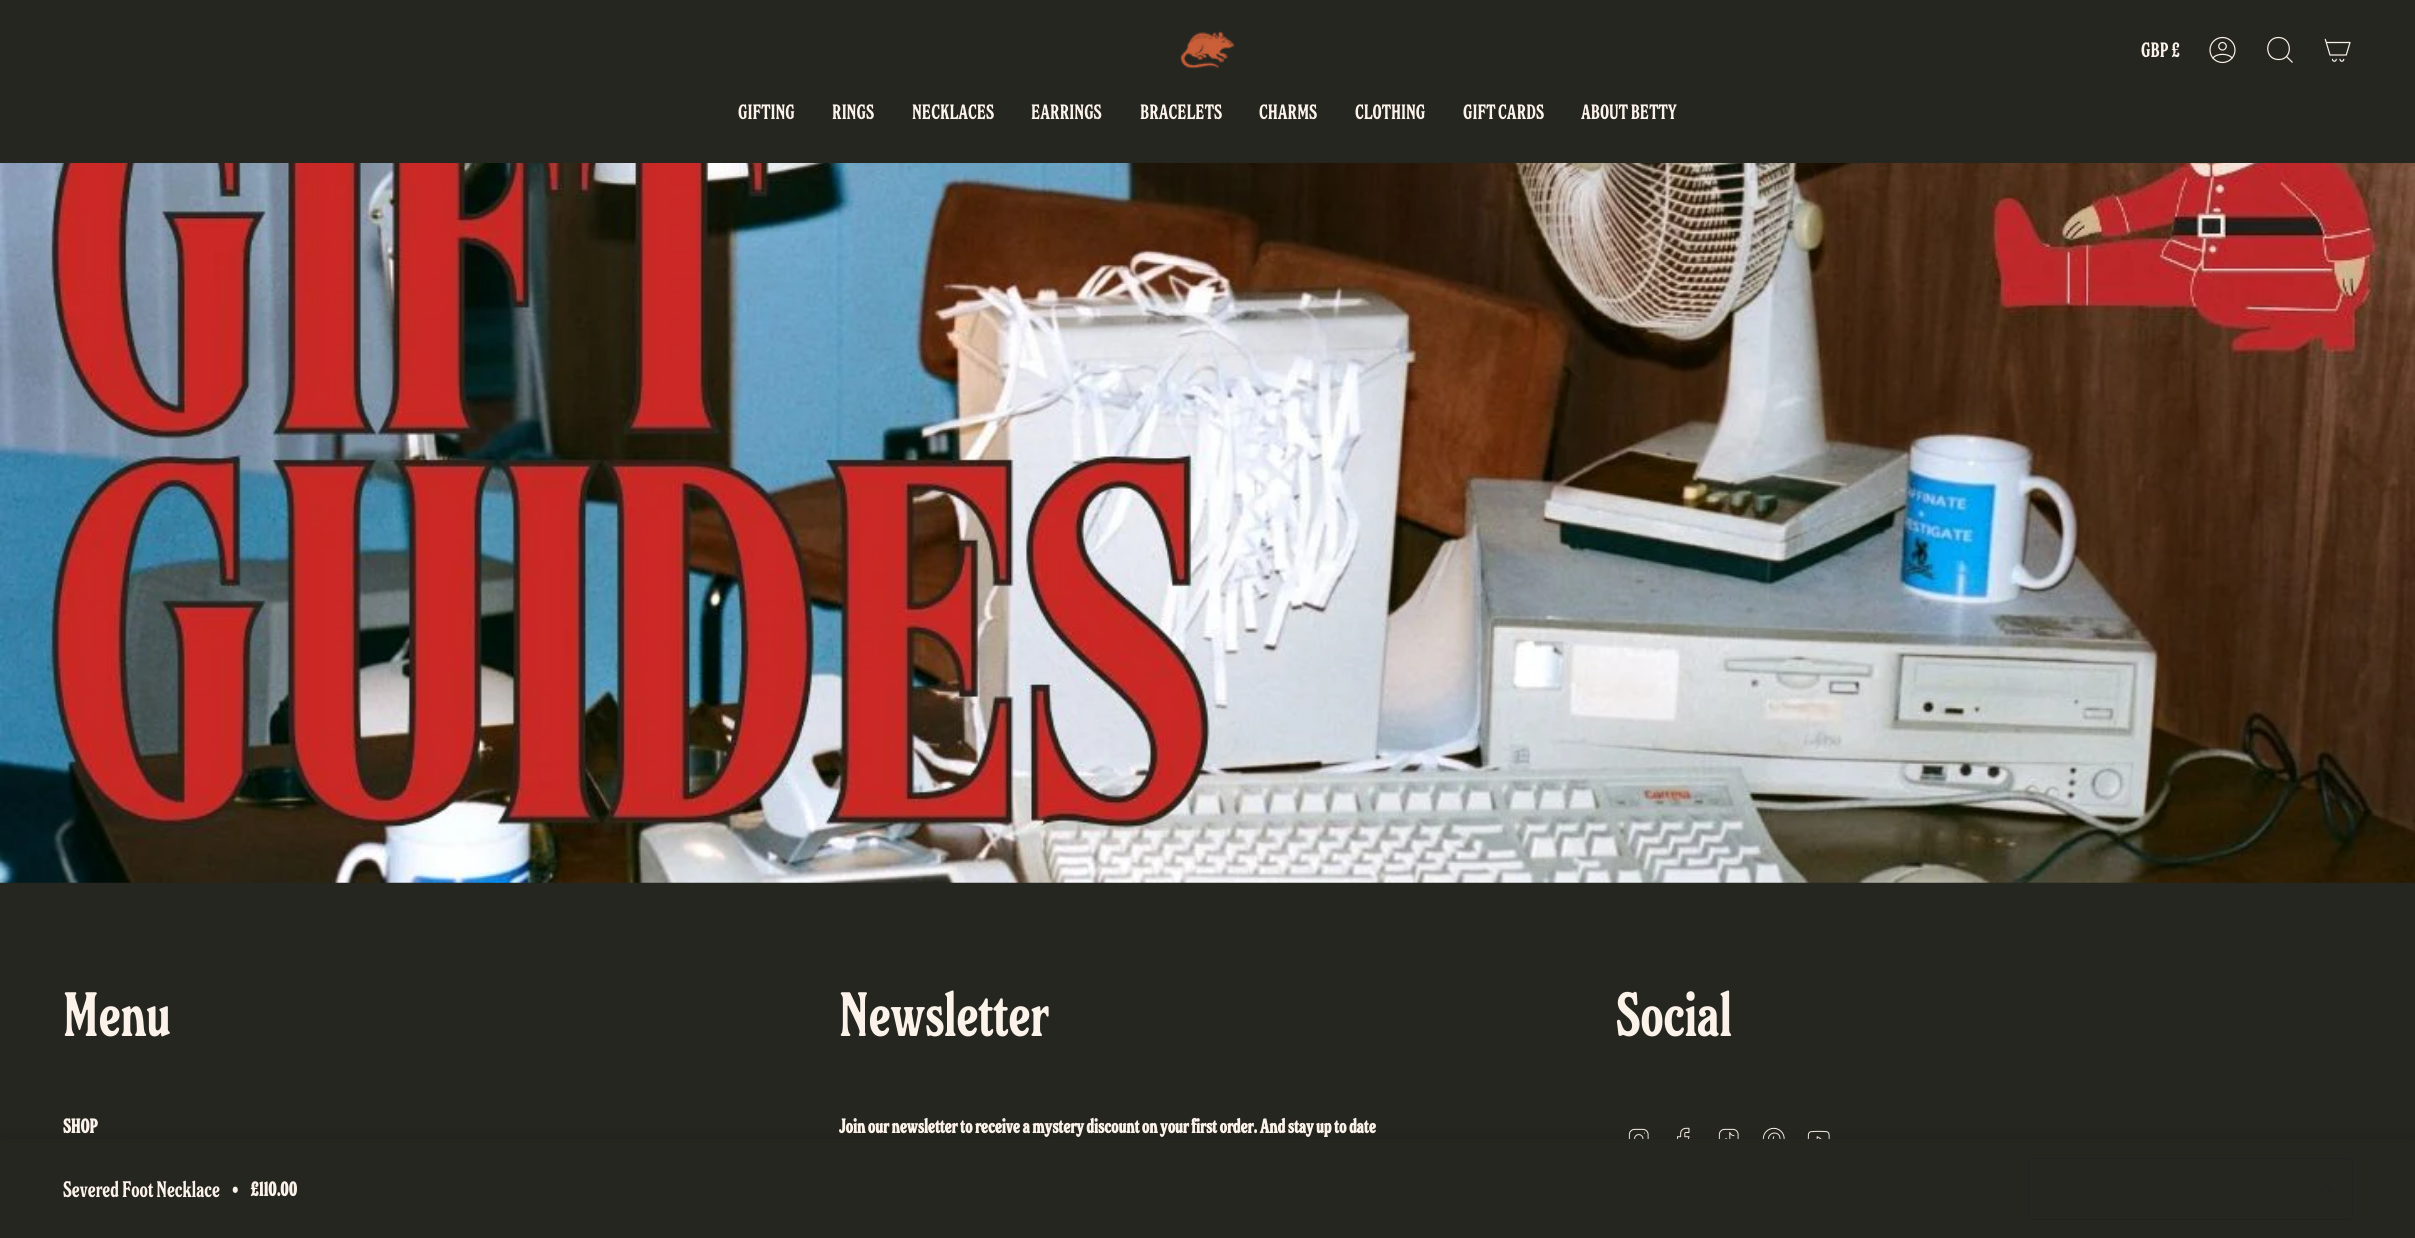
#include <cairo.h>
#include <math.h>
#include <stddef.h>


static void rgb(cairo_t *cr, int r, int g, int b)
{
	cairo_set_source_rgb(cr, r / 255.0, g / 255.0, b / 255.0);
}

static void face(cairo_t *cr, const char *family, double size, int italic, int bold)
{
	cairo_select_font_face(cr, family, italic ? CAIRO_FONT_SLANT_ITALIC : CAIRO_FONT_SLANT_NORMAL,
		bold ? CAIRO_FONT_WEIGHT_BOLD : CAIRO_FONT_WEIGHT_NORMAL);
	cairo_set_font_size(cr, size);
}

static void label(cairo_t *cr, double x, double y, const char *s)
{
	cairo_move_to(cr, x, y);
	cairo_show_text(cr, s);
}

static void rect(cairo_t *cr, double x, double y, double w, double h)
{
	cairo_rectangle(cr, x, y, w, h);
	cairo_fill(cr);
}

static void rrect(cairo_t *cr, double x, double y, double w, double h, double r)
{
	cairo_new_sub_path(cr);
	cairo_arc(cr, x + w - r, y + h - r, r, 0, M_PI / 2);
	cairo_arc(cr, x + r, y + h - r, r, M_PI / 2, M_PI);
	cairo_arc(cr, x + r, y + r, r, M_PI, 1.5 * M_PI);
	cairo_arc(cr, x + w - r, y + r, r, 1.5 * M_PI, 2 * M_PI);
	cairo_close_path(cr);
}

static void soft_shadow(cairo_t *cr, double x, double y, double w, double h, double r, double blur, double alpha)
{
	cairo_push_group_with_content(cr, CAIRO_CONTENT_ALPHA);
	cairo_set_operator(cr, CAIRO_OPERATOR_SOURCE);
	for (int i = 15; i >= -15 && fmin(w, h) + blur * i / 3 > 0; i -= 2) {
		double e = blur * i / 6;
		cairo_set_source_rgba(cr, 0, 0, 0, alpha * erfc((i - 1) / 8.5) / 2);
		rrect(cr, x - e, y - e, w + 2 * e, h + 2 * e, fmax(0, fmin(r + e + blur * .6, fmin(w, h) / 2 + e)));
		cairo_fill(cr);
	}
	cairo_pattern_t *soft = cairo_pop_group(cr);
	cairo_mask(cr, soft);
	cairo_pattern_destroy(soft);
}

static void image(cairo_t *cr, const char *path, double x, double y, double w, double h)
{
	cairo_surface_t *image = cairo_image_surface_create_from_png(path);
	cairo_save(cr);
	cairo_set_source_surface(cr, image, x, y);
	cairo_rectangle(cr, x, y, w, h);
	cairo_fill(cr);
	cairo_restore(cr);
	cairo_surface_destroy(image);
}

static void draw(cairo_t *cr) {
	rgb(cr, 38, 38, 33);
	cairo_paint(cr);
	image(cr, "image0.png", 1180, 31, 55, 38);
	face(cr, "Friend", 20.75, 0, 0);
	rgb(cr, 251, 242, 233);
	label(cr, 2141, 57, "GBP £");
	image(cr, "image1.png", 2209, 36, 27, 28);
	cairo_new_path(cr);
	cairo_move_to(cr, 2278.5, 37.5);
	cairo_curve_to(cr, 2293, 37.5, 2293, 60.5, 2278, 59.5);
	cairo_curve_to(cr, 2264, 59, 2264.5, 37.5, 2278.5, 37.5);
	cairo_close_path(cr);
	cairo_move_to(cr, 2286.5, 56.5);
	cairo_line_to(cr, 2292.5, 62.5);
	cairo_set_line_width(cr, 1.2);
	cairo_stroke(cr);
	image(cr, "image2.png", 2324, 38, 27, 24);
	label(cr, 738, 119, "GIFTING");
	label(cr, 832, 119, "RINGS");
	label(cr, 912, 119, "NECKLACES");
	label(cr, 1031, 119, "EARRINGS");
	label(cr, 1140, 119, "BRACELETS");
	label(cr, 1259, 119, "CHARMS");
	label(cr, 1355, 119, "CLOTHING");
	label(cr, 1463, 119, "GIFT CARDS");
	label(cr, 1581, 119, "ABOUT BETTY");
	image(cr, "image3.png", 0, 163, 2415, 720);
	image(cr, "image4.png", 1628, 1128, 21, 11);
	image(cr, "image5.png", 1677, 1127, 13, 12);
	image(cr, "image6.png", 1718, 1128, 21, 11);
	image(cr, "image7.png", 1762, 1127, 23, 12);
	image(cr, "image8.png", 1807, 1130, 23, 9);
	rgb(cr, 0, 0, 0);
	soft_shadow(cr, 0, 1139, 2415, 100, 0, 6, 0.2);
	rgb(cr, 38, 38, 33);
	rect(cr, 0, 1139, 2415, 99);
	face(cr, "Friend", 22.5, 0, 0);
	rgb(cr, 251, 242, 233);
	label(cr, 63, 1197, "Severed Foot Necklace");
	face(cr, "Friend", 20, 0, 1);
	label(cr, 232, 1196, "•");
	label(cr, 250, 1196, "£110.00");
	rrect(cr, 2028.5, 1158.5, 324, 61, 3.5);
	rgb(cr, 33, 33, 33);
	cairo_set_line_width(cr, 1);
	cairo_stroke(cr);
	cairo_new_path(cr);
	cairo_move_to(cr, 2320, 1192);
	cairo_line_to(cr, 2326, 1185.5);
	cairo_line_to(cr, 2332.5, 1192);
	cairo_set_line_cap(cr, CAIRO_LINE_CAP_ROUND);
	cairo_set_line_join(cr, CAIRO_LINE_JOIN_ROUND);
	cairo_stroke(cr);
	face(cr, "Friend", 62.5, 0, 0);
	rgb(cr, 251, 242, 233);
	label(cr, 63, 1036, "Menu");
	face(cr, "Friend", 20, 0, 1);
	label(cr, 63, 1133, "SHOP");
	face(cr, "Friend", 62.5, 0, 0);
	label(cr, 839, 1036, "Newsletter");
	face(cr, "Friend", 20, 0, 1);
	label(cr, 839, 1133, "Join our newsletter to receive a mystery discount on your first order. And stay up to date");
	face(cr, "Friend", 62.5, 0, 0);
	label(cr, 1616, 1036, "Social");
}

int main(void) {
	cairo_surface_t *surface = cairo_image_surface_create(CAIRO_FORMAT_RGB24, 2415, 1238);
	cairo_t *cr = cairo_create(surface);
	cairo_font_options_t *options = cairo_font_options_create();
	cairo_font_options_set_hint_metrics(options, CAIRO_HINT_METRICS_OFF);
	cairo_font_options_set_hint_style(options, CAIRO_HINT_STYLE_NONE);
	cairo_set_font_options(cr, options);
	cairo_set_miter_limit(cr, 4);
	draw(cr);
	cairo_surface_write_to_png(surface, "render.png");
	cairo_font_options_destroy(options);
	cairo_destroy(cr);
	cairo_surface_destroy(surface);
	return 0;
}
